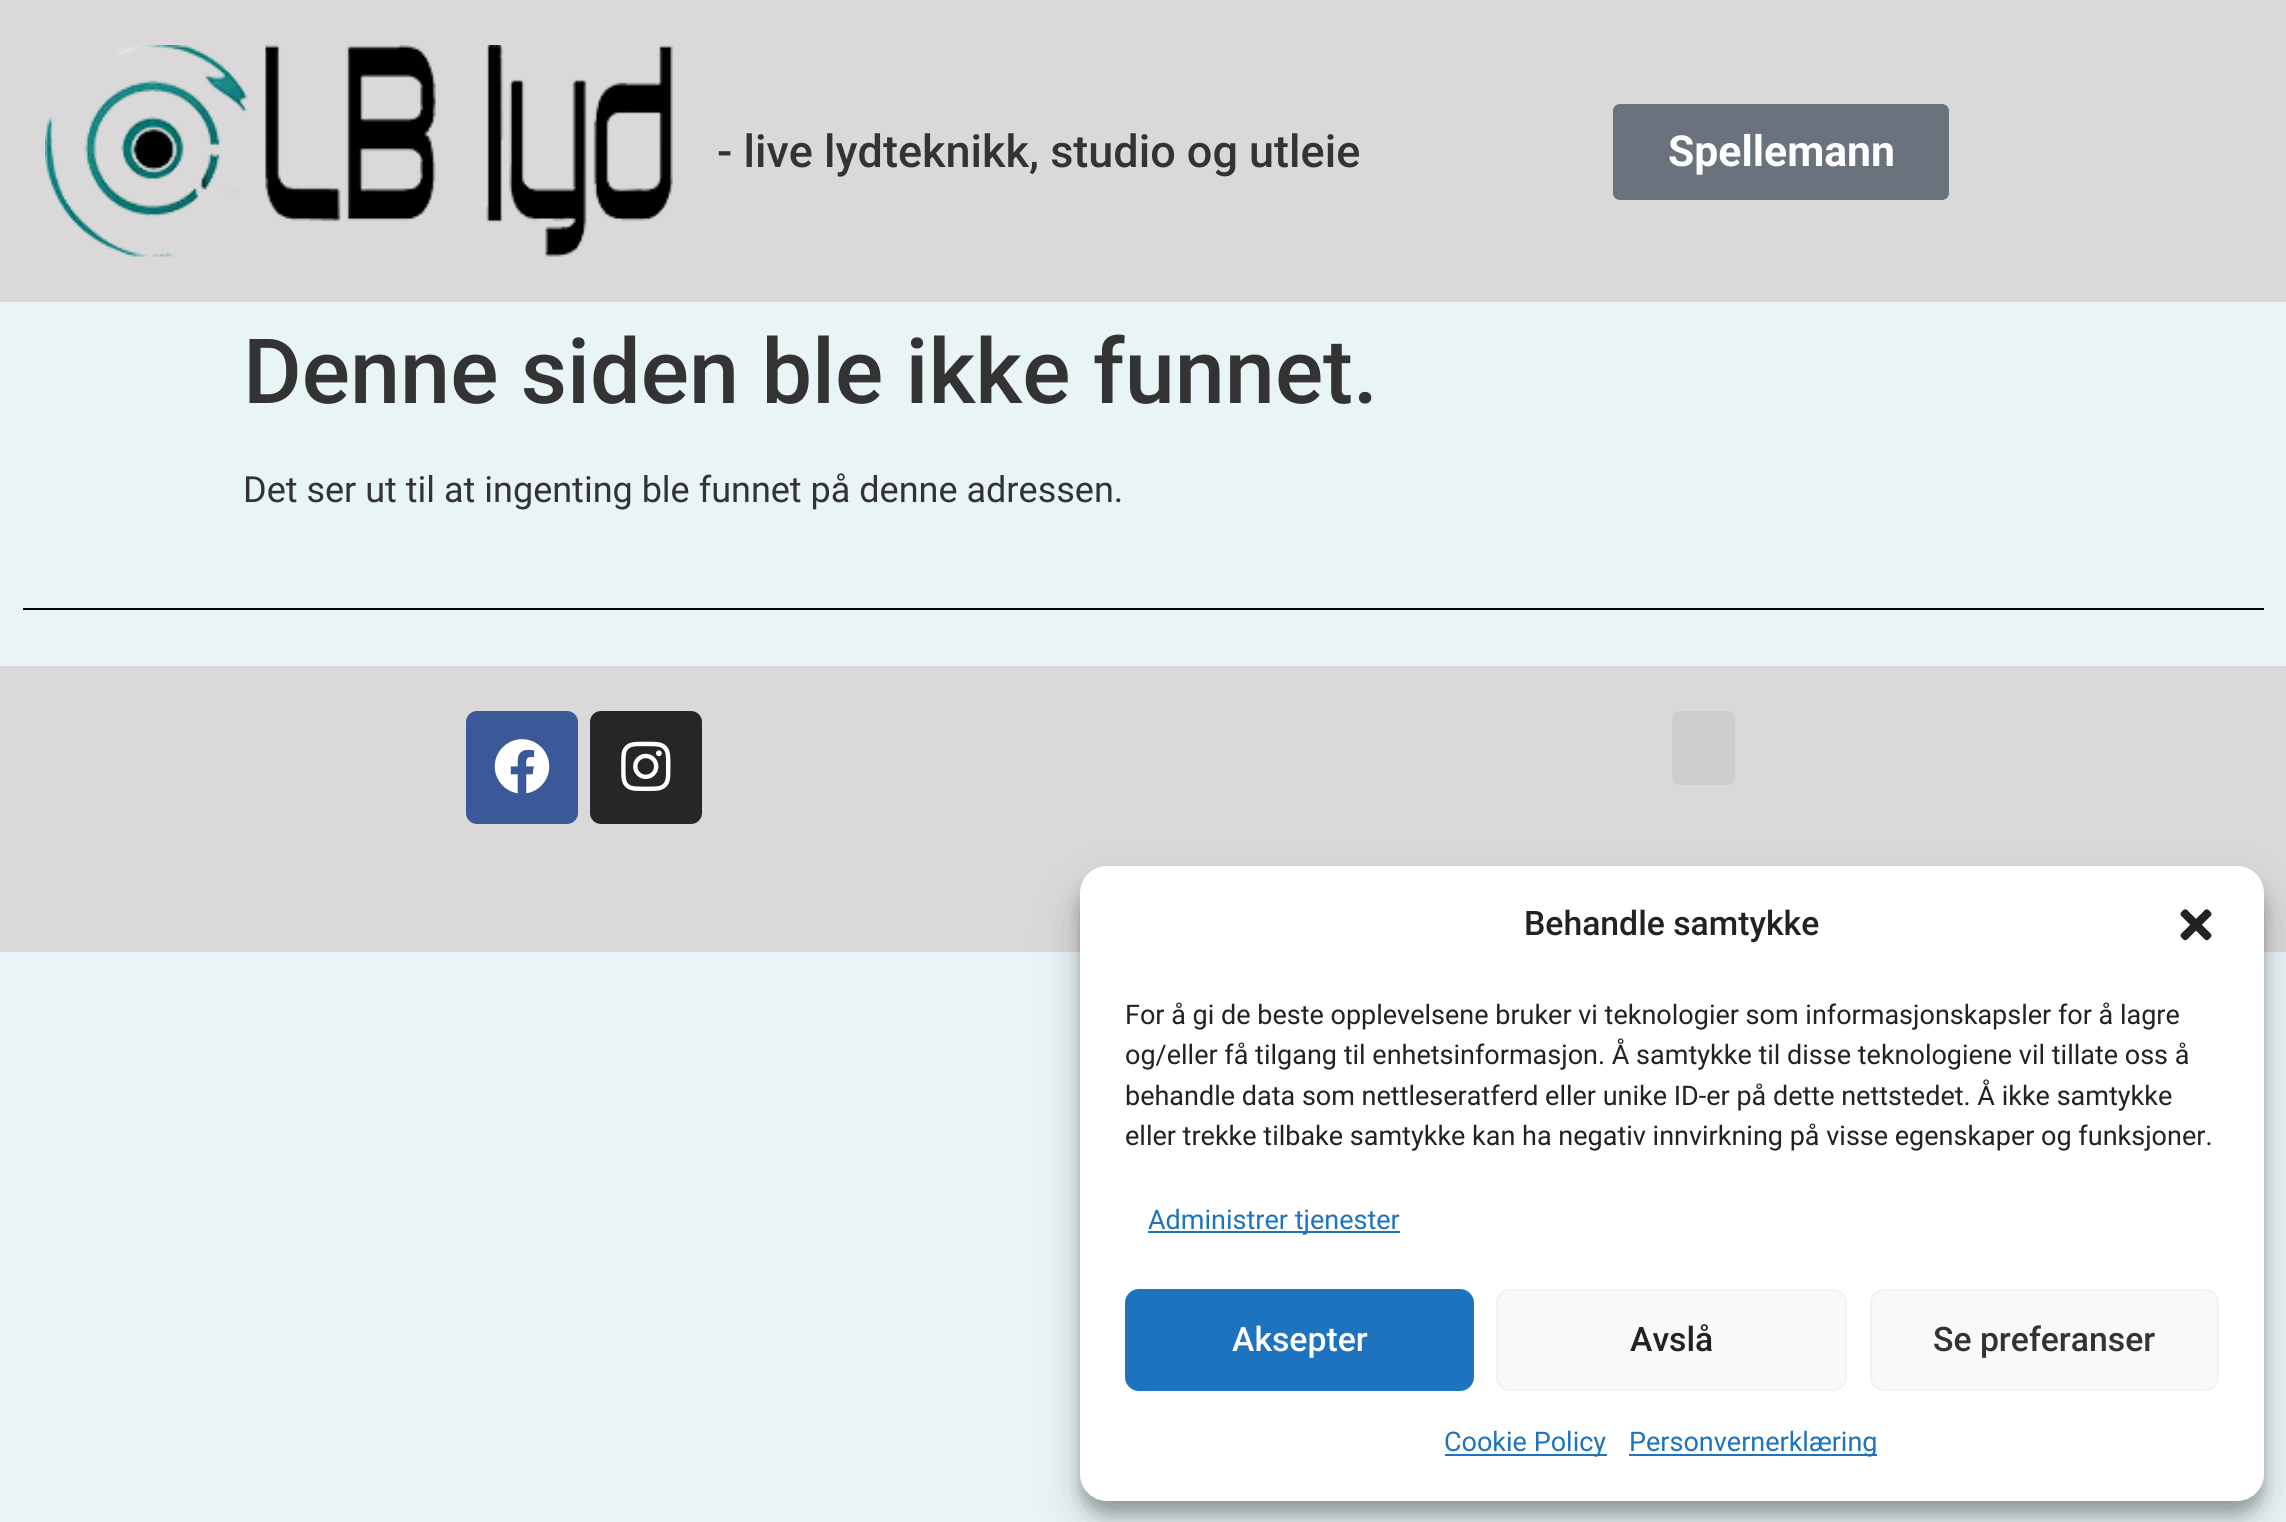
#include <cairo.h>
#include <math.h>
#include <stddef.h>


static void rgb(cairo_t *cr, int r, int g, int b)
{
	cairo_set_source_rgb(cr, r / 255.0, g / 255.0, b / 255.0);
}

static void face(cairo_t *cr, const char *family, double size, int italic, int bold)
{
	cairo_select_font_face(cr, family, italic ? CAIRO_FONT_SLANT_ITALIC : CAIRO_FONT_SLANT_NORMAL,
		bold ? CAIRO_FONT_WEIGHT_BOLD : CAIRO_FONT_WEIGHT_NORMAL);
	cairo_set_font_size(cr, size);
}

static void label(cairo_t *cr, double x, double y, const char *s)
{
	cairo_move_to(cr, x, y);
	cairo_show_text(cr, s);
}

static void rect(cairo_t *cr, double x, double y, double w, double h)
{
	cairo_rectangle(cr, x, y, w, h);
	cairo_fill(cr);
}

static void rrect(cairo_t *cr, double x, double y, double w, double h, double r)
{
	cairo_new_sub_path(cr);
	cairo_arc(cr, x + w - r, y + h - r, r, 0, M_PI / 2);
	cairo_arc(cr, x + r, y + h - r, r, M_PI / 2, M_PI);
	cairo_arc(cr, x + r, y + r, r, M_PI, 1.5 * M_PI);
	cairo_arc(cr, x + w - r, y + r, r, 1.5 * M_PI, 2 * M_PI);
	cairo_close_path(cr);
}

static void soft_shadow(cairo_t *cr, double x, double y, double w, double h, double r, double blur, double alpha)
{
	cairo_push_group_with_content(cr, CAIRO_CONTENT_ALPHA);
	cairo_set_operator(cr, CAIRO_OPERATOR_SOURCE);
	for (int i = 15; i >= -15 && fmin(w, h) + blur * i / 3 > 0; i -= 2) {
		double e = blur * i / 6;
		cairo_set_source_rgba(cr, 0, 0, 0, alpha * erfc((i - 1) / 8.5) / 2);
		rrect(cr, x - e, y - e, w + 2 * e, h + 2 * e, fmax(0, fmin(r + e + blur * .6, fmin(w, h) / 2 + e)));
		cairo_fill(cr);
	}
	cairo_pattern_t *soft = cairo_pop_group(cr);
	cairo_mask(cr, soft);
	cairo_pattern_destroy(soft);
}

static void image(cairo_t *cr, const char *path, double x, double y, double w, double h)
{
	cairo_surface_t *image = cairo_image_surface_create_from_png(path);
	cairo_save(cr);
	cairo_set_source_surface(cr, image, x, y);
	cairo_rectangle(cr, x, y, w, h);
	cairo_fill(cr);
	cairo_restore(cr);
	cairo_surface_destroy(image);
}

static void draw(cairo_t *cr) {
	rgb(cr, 233, 244, 247);
	cairo_paint(cr);
	rgb(cr, 218, 216, 216);
	rect(cr, 0, 0, 2286, 302);
	image(cr, "image0.png", 45, 45, 628, 212);
	face(cr, "Roboto Medium", 45, 0, 0);
	rgb(cr, 51, 51, 51);
	label(cr, 717, 167, "- live lydteknikk, studio og utleie");
	rgb(cr, 105, 114, 125);
	rrect(cr, 1613, 104, 336, 96, 7);
	cairo_fill(cr);
	face(cr, "Roboto", 42.75, 0, 1);
	rgb(cr, 255, 255, 255);
	label(cr, 1668, 166, "Spellemann");
	face(cr, "Roboto Medium", 90, 0, 0);
	rgb(cr, 51, 51, 51);
	label(cr, 243, 403, "Denne siden ble ikke funnet.");
	face(cr, "Roboto", 36, 0, 0);
	label(cr, 243, 502, "Det ser ut til at ingenting ble funnet på denne adressen.");
	rgb(cr, 0, 0, 0);
	rect(cr, 23, 608, 2241, 2);
	rgb(cr, 218, 216, 216);
	rect(cr, 0, 666, 2286, 286);
	rgb(cr, 59, 89, 152);
	rrect(cr, 466, 711, 112, 113, 11);
	cairo_fill(cr);
	image(cr, "image1.png", 494, 739, 56, 55);
	rgb(cr, 38, 38, 38);
	rrect(cr, 590, 711, 112, 113, 11);
	cairo_fill(cr);
	image(cr, "image2.png", 621, 741, 50, 50);
	rgb(cr, 207, 205, 205);
	rrect(cr, 1672, 711, 63, 74, 7);
	cairo_fill(cr);
	rgb(cr, 0, 0, 0);
	soft_shadow(cr, 1080, 880, 1184, 634, 27, 7, 0.23);
	soft_shadow(cr, 1080, 889, 1184, 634, 27, 22.5, 0.19);
	rgb(cr, 255, 255, 255);
	rrect(cr, 1080, 866, 1184, 635, 27);
	cairo_fill(cr);
	face(cr, "Roboto Medium", 33.75, 0, 0);
	rgb(cr, 34, 34, 34);
	label(cr, 1524, 935, "Behandle samtykke");
	image(cr, "image3.png", 2180, 909, 32, 32);
	face(cr, "Roboto", 27, 0, 0);
	label(cr, 1125, 1024, "For å gi de beste opplevelsene bruker vi teknologier som informasjonskapsler for å lagre");
	label(cr, 1125, 1064, "og/eller få tilgang til enhetsinformasjon. Å samtykke til disse teknologiene vil tillate oss å");
	label(cr, 1125, 1105, "behandle data som nettleseratferd eller unike ID-er på dette nettstedet. Å ikke samtykke");
	label(cr, 1125, 1145, "eller trekke tilbake samtykke kan ha negativ innvirkning på visse egenskaper og funksjoner.");
	rgb(cr, 30, 115, 190);
	rect(cr, 1148, 1231, 252, 2);
	label(cr, 1148, 1229, "Administrer tjenester");
	rrect(cr, 1126, 1290, 347, 100, 13);
	cairo_fill_preserve(cr);
	cairo_stroke(cr);
	face(cr, "Roboto Medium", 33.75, 0, 0);
	rgb(cr, 255, 255, 255);
	label(cr, 1232, 1351, "Aksepter");
	rgb(cr, 249, 249, 249);
	rrect(cr, 1497, 1290, 349, 100, 13);
	cairo_fill_preserve(cr);
	rgb(cr, 242, 242, 242);
	cairo_stroke(cr);
	rgb(cr, 34, 34, 34);
	label(cr, 1630, 1351, "Avslå");
	rgb(cr, 249, 249, 249);
	rrect(cr, 1871, 1290, 347, 100, 13);
	cairo_fill_preserve(cr);
	rgb(cr, 242, 242, 242);
	cairo_stroke(cr);
	rgb(cr, 51, 51, 51);
	label(cr, 1933, 1351, "Se preferanser");
	rgb(cr, 30, 115, 190);
	rect(cr, 1445, 1454, 162, 2);
	face(cr, "Roboto", 27, 0, 0);
	label(cr, 1444, 1451, "Cookie Policy");
	rect(cr, 1629, 1454, 248, 2);
	label(cr, 1629, 1451, "Personvernerklæring");
}

int main(void) {
	cairo_surface_t *surface = cairo_image_surface_create(CAIRO_FORMAT_RGB24, 2286, 1522);
	cairo_t *cr = cairo_create(surface);
	cairo_font_options_t *options = cairo_font_options_create();
	cairo_font_options_set_hint_metrics(options, CAIRO_HINT_METRICS_OFF);
	cairo_font_options_set_hint_style(options, CAIRO_HINT_STYLE_NONE);
	cairo_set_font_options(cr, options);
	cairo_set_miter_limit(cr, 4);
	draw(cr);
	cairo_surface_write_to_png(surface, "render.png");
	cairo_font_options_destroy(options);
	cairo_destroy(cr);
	cairo_surface_destroy(surface);
	return 0;
}
